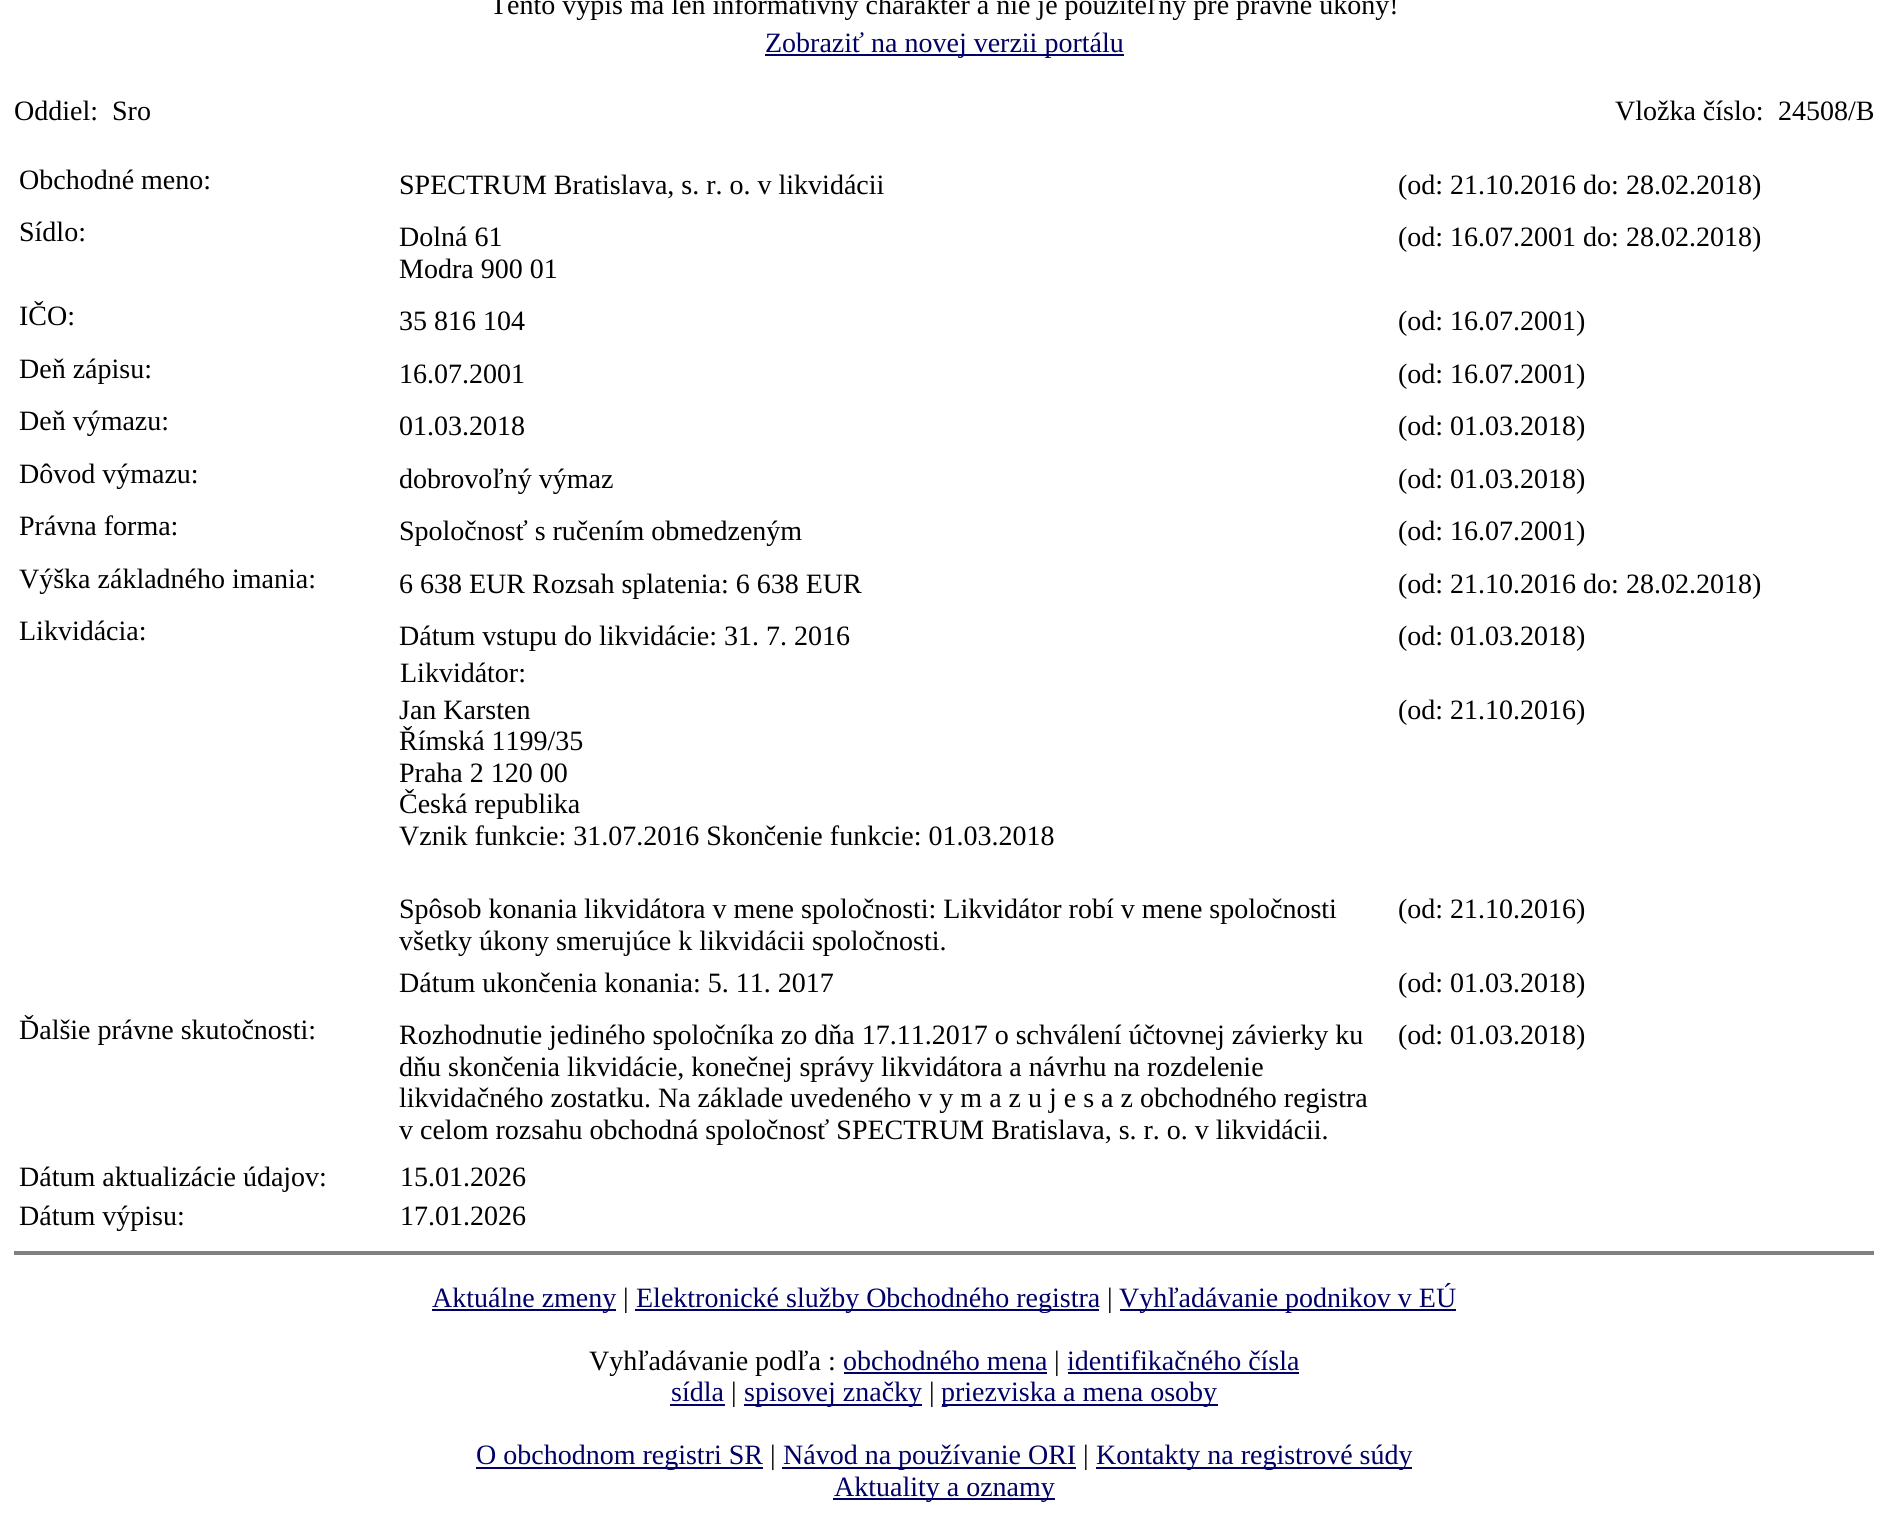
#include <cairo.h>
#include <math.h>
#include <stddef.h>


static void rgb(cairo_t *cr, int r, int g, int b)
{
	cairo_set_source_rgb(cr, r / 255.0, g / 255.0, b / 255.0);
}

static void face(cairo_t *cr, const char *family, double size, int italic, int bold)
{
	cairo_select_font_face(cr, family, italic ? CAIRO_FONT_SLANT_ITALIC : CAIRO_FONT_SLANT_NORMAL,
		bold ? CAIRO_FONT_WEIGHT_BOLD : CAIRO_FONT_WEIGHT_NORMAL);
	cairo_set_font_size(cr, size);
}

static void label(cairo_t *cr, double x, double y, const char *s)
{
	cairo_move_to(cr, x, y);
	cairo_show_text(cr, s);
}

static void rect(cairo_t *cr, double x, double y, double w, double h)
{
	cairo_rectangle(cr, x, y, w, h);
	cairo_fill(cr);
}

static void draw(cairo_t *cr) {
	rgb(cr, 255, 255, 255);
	cairo_paint(cr);
	face(cr, "Liberation Serif", 28, 0, 0);
	rgb(cr, 0, 0, 0);
	label(cr, 490, 14, "Tento výpis má len informatívny charakter a nie je použiteľný pre právne úkony!");
	rgb(cr, 0, 0, 102);
	rect(cr, 765, 54, 359, 2);
	label(cr, 765, 52, "Zobraziť na novej verzii portálu");
	rgb(cr, 0, 0, 0);
	label(cr, 14, 120, "Oddiel:");
	label(cr, 112, 120, "Sro");
	label(cr, 1615, 120, "Vložka číslo:");
	label(cr, 1778, 120, "24508/B");
	label(cr, 19, 189, "Obchodné meno:");
	label(cr, 399, 194, "SPECTRUM Bratislava, s. r. o. v likvidácii");
	label(cr, 1398, 194, "(od: 21.10.2016 do: 28.02.2018)");
	label(cr, 19, 241, "Sídlo:");
	label(cr, 399, 246, "Dolná 61");
	label(cr, 399, 278, "Modra 900 01");
	label(cr, 1398, 246, "(od: 16.07.2001 do: 28.02.2018)");
	label(cr, 19, 325, "IČO:");
	label(cr, 399, 330, "35 816 104");
	label(cr, 1398, 330, "(od: 16.07.2001)");
	label(cr, 19, 378, "Deň zápisu:");
	label(cr, 399, 383, "16.07.2001");
	label(cr, 1398, 383, "(od: 16.07.2001)");
	label(cr, 19, 430, "Deň výmazu:");
	label(cr, 399, 435, "01.03.2018");
	label(cr, 1398, 435, "(od: 01.03.2018)");
	label(cr, 19, 483, "Dôvod výmazu:");
	label(cr, 399, 488, "dobrovoľný výmaz");
	label(cr, 1398, 488, "(od: 01.03.2018)");
	label(cr, 19, 535, "Právna forma:");
	label(cr, 399, 540, "Spoločnosť s ručením obmedzeným");
	label(cr, 1398, 540, "(od: 16.07.2001)");
	label(cr, 19, 588, "Výška základného imania:");
	label(cr, 399, 593, "6 638 EUR Rozsah splatenia: 6 638 EUR");
	label(cr, 1398, 593, "(od: 21.10.2016 do: 28.02.2018)");
	label(cr, 19, 640, "Likvidácia:");
	label(cr, 399, 645, "Dátum vstupu do likvidácie: 31. 7. 2016");
	label(cr, 1398, 645, "(od: 01.03.2018)");
	label(cr, 400, 682, "Likvidátor:");
	label(cr, 399, 719, "Jan Karsten");
	label(cr, 399, 750, "Římská 1199/35");
	label(cr, 399, 782, "Praha 2 120 00");
	label(cr, 399, 813, "Česká republika");
	label(cr, 399, 845, "Vznik funkcie: 31.07.2016 Skončenie funkcie: 01.03.2018");
	label(cr, 1398, 719, "(od: 21.10.2016)");
	label(cr, 399, 918, "Spôsob konania likvidátora v mene spoločnosti: Likvidátor robí v mene spoločnosti");
	label(cr, 399, 950, "všetky úkony smerujúce k likvidácii spoločnosti.");
	label(cr, 1398, 918, "(od: 21.10.2016)");
	label(cr, 399, 992, "Dátum ukončenia konania: 5. 11. 2017");
	label(cr, 1398, 992, "(od: 01.03.2018)");
	label(cr, 19, 1039, "Ďalšie právne skutočnosti:");
	label(cr, 399, 1044, "Rozhodnutie jediného spoločníka zo dňa 17.11.2017 o schválení účtovnej závierky ku");
	label(cr, 399, 1076, "dňu skončenia likvidácie, konečnej správy likvidátora a návrhu na rozdelenie");
	label(cr, 399, 1107, "likvidačného zostatku. Na základe uvedeného v y m a z u j e s a z obchodného registra");
	label(cr, 399, 1139, "v celom rozsahu obchodná spoločnosť SPECTRUM Bratislava, s. r. o. v likvidácii.");
	label(cr, 1398, 1044, "(od: 01.03.2018)");
	label(cr, 19, 1186, "Dátum aktualizácie údajov:");
	label(cr, 400, 1186, "15.01.2026");
	label(cr, 19, 1225, "Dátum výpisu:");
	label(cr, 400, 1225, "17.01.2026");
	rgb(cr, 128, 128, 128);
	rect(cr, 14, 1251, 1860, 4);
	rgb(cr, 0, 0, 102);
	rect(cr, 432, 1309, 184, 2);
	label(cr, 432, 1307, "Aktuálne zmeny");
	rgb(cr, 0, 0, 0);
	label(cr, 623, 1307, "|");
	rgb(cr, 0, 0, 102);
	rect(cr, 635, 1309, 464, 2);
	label(cr, 636, 1307, "Elektronické služby Obchodného registra");
	rgb(cr, 0, 0, 0);
	label(cr, 1107, 1307, "|");
	rgb(cr, 0, 0, 102);
	rect(cr, 1120, 1309, 336, 2);
	label(cr, 1119, 1307, "Vyhľadávanie podnikov v EÚ");
	rgb(cr, 0, 0, 0);
	label(cr, 589, 1370, "Vyhľadávanie podľa :");
	rgb(cr, 0, 0, 102);
	label(cr, 843, 1370, "obchodného mena");
	rect(cr, 844, 1372, 203, 2);
	rgb(cr, 0, 0, 0);
	label(cr, 1054, 1370, "|");
	rgb(cr, 0, 0, 102);
	label(cr, 1067, 1370, "identifikačného čísla");
	rect(cr, 1068, 1372, 231, 2);
	label(cr, 671, 1401, "sídla");
	rect(cr, 670, 1404, 55, 2);
	rgb(cr, 0, 0, 0);
	label(cr, 731, 1401, "|");
	rgb(cr, 0, 0, 102);
	rect(cr, 744, 1404, 178, 2);
	label(cr, 744, 1401, "spisovej značky");
	rgb(cr, 0, 0, 0);
	label(cr, 929, 1401, "|");
	rgb(cr, 0, 0, 102);
	rect(cr, 942, 1404, 276, 2);
	label(cr, 941, 1401, "priezviska a mena osoby");
	rect(cr, 476, 1467, 287, 2);
	label(cr, 476, 1464, "O obchodnom registri SR");
	rgb(cr, 0, 0, 0);
	label(cr, 770, 1464, "|");
	rgb(cr, 0, 0, 102);
	rect(cr, 782, 1467, 294, 2);
	label(cr, 783, 1464, "Návod na používanie ORI");
	rgb(cr, 0, 0, 0);
	label(cr, 1083, 1464, "|");
	rgb(cr, 0, 0, 102);
	rect(cr, 1096, 1467, 316, 2);
	label(cr, 1096, 1464, "Kontakty na registrové súdy");
	rect(cr, 833, 1498, 222, 2);
	label(cr, 834, 1496, "Aktuality a oznamy");
}

int main(void) {
	cairo_surface_t *surface = cairo_image_surface_create(CAIRO_FORMAT_RGB24, 1888, 1531);
	cairo_t *cr = cairo_create(surface);
	cairo_font_options_t *options = cairo_font_options_create();
	cairo_font_options_set_hint_metrics(options, CAIRO_HINT_METRICS_OFF);
	cairo_font_options_set_hint_style(options, CAIRO_HINT_STYLE_NONE);
	cairo_set_font_options(cr, options);
	cairo_set_miter_limit(cr, 4);
	draw(cr);
	cairo_surface_write_to_png(surface, "render.png");
	cairo_font_options_destroy(options);
	cairo_destroy(cr);
	cairo_surface_destroy(surface);
	return 0;
}
